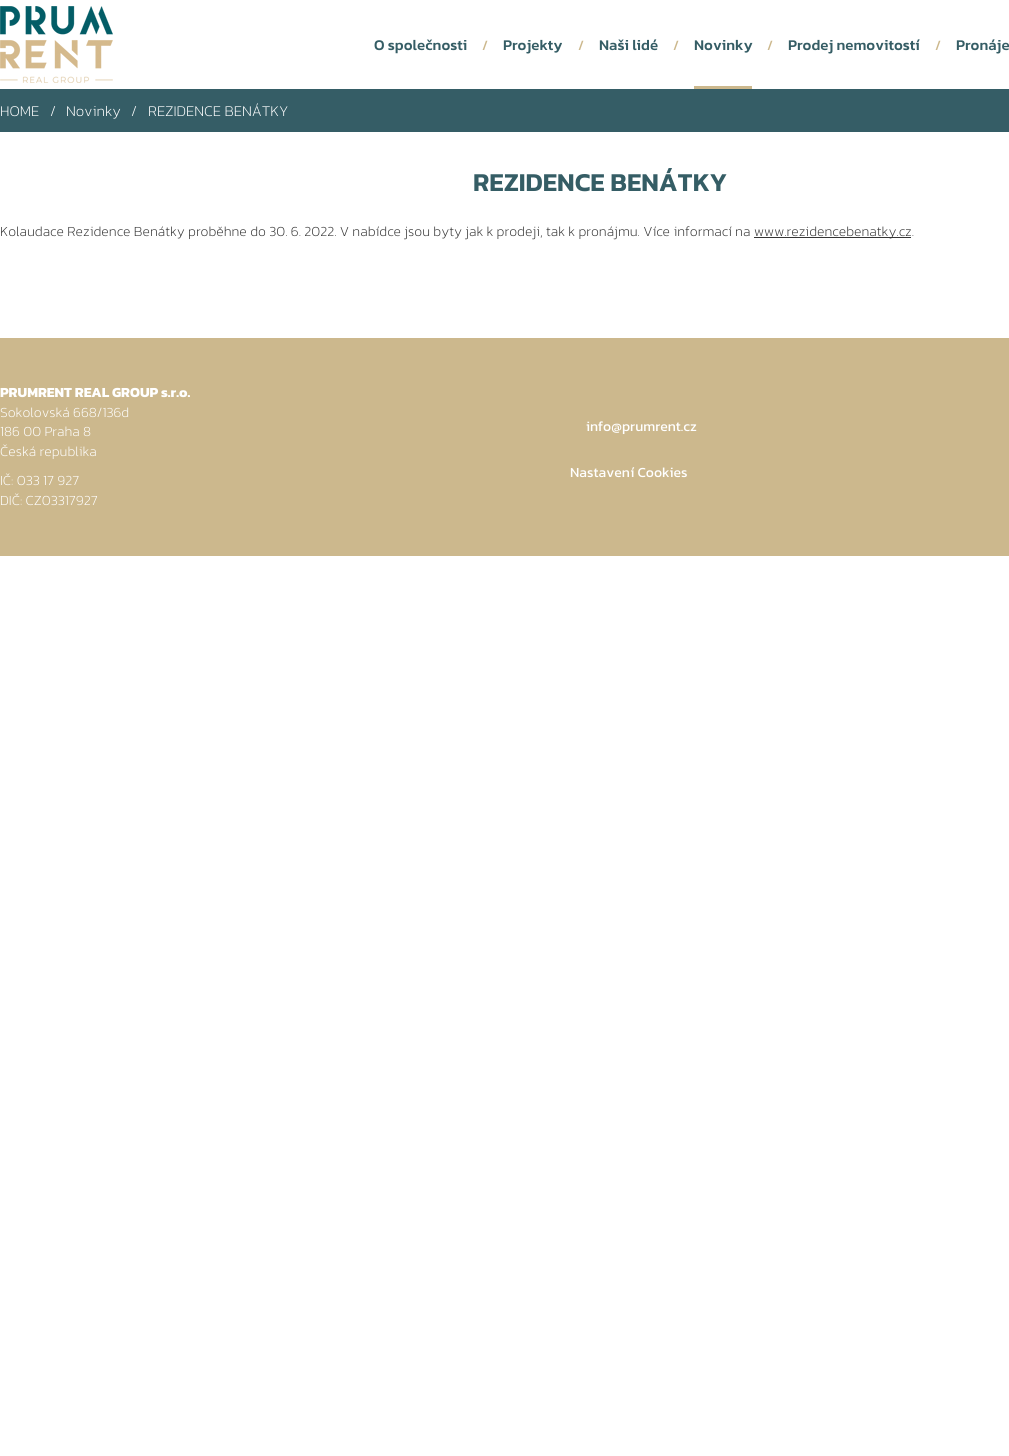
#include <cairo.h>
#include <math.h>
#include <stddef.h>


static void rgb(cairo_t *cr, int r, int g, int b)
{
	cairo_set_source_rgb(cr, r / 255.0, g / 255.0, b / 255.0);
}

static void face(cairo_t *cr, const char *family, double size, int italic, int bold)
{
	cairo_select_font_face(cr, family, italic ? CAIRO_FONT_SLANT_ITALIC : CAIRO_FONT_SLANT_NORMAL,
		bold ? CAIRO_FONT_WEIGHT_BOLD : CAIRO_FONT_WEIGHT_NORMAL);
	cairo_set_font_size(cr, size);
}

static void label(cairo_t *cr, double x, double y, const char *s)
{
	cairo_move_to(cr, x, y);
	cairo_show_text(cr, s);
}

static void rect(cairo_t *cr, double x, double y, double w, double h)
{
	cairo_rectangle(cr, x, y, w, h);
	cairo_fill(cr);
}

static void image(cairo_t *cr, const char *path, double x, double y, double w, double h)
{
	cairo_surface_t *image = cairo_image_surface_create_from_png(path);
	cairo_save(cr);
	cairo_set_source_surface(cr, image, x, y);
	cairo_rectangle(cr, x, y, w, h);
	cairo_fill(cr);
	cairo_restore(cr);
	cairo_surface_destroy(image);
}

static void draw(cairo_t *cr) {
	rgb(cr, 255, 255, 255);
	cairo_paint(cr);
	image(cr, "image0.png", 0, 6, 113, 77);
	face(cr, "Kanit Medium", 15, 0, 0);
	rgb(cr, 53, 93, 101);
	label(cr, 374, 50, "O společnosti");
	face(cr, "Kanit", 14, 0, 0);
	rgb(cr, 204, 184, 141);
	label(cr, 482, 50, "/");
	face(cr, "Kanit Medium", 15, 0, 0);
	rgb(cr, 53, 93, 101);
	label(cr, 503, 50, "Projekty");
	face(cr, "Kanit", 14, 0, 0);
	rgb(cr, 204, 184, 141);
	label(cr, 578, 50, "/");
	face(cr, "Kanit Medium", 15, 0, 0);
	rgb(cr, 53, 93, 101);
	label(cr, 599, 50, "Naši lidé");
	face(cr, "Kanit", 14, 0, 0);
	rgb(cr, 204, 184, 141);
	label(cr, 673, 50, "/");
	rect(cr, 694, 86, 58, 3);
	face(cr, "Kanit Medium", 15, 0, 0);
	rgb(cr, 53, 93, 101);
	label(cr, 694, 50, "Novinky");
	face(cr, "Kanit", 14, 0, 0);
	rgb(cr, 204, 184, 141);
	label(cr, 767, 50, "/");
	face(cr, "Kanit Medium", 15, 0, 0);
	rgb(cr, 53, 93, 101);
	label(cr, 788, 50, "Prodej nemovitostí");
	face(cr, "Kanit", 14, 0, 0);
	rgb(cr, 204, 184, 141);
	label(cr, 935, 50, "/");
	face(cr, "Kanit Medium", 15, 0, 0);
	rgb(cr, 53, 93, 101);
	label(cr, 956, 50, "Pronáje");
	rgb(cr, 53, 93, 102);
	rect(cr, 0, 89, 1009, 43);
	face(cr, "Kanit ExtraLight", 15, 0, 0);
	rgb(cr, 255, 255, 255);
	label(cr, 0, 116, "HOME");
	label(cr, 50, 116, "/");
	label(cr, 66, 116, "Novinky");
	label(cr, 131, 116, "/");
	label(cr, 148, 116, "REZIDENCE BENÁTKY");
	face(cr, "Kanit SemiBold", 26, 0, 0);
	rgb(cr, 53, 93, 101);
	label(cr, 473, 191, "REZIDENCE BENÁTKY");
	face(cr, "Kanit ExtraLight", 14, 0, 0);
	rgb(cr, 53, 53, 53);
	label(cr, 0, 236, "Kolaudace Rezidence Benátky proběhne do 30. 6. 2022. V nabídce jsou byty jak k prodeji, tak k pronájmu. Více informací na");
	rect(cr, 754, 237, 157, 1);
	label(cr, 754, 236, "www.rezidencebenatky.cz.");
	rgb(cr, 204, 184, 141);
	rect(cr, 0, 338, 1009, 218);
	face(cr, "Kanit", 14, 0, 1);
	rgb(cr, 255, 255, 255);
	label(cr, 0, 397, "PRUMRENT REAL GROUP s.r.o.");
	face(cr, "Kanit ExtraLight", 14, 0, 0);
	label(cr, 0, 417, "Sokolovská 668/136d");
	label(cr, 0, 436, "186 00 Praha 8");
	label(cr, 0, 456, "Česká republika");
	label(cr, 0, 485, "IČ: 033 17 927");
	label(cr, 0, 505, "DIČ: CZ03317927");
	face(cr, "Kanit", 14, 0, 0);
	label(cr, 586, 431, "info@prumrent.cz");
	label(cr, 570, 477, "Nastavení Cookies");
}

int main(void) {
	cairo_surface_t *surface = cairo_image_surface_create(CAIRO_FORMAT_RGB24, 1009, 1456);
	cairo_t *cr = cairo_create(surface);
	cairo_font_options_t *options = cairo_font_options_create();
	cairo_font_options_set_hint_metrics(options, CAIRO_HINT_METRICS_OFF);
	cairo_font_options_set_hint_style(options, CAIRO_HINT_STYLE_NONE);
	cairo_set_font_options(cr, options);
	cairo_set_miter_limit(cr, 4);
	draw(cr);
	cairo_surface_write_to_png(surface, "render.png");
	cairo_font_options_destroy(options);
	cairo_destroy(cr);
	cairo_surface_destroy(surface);
	return 0;
}
